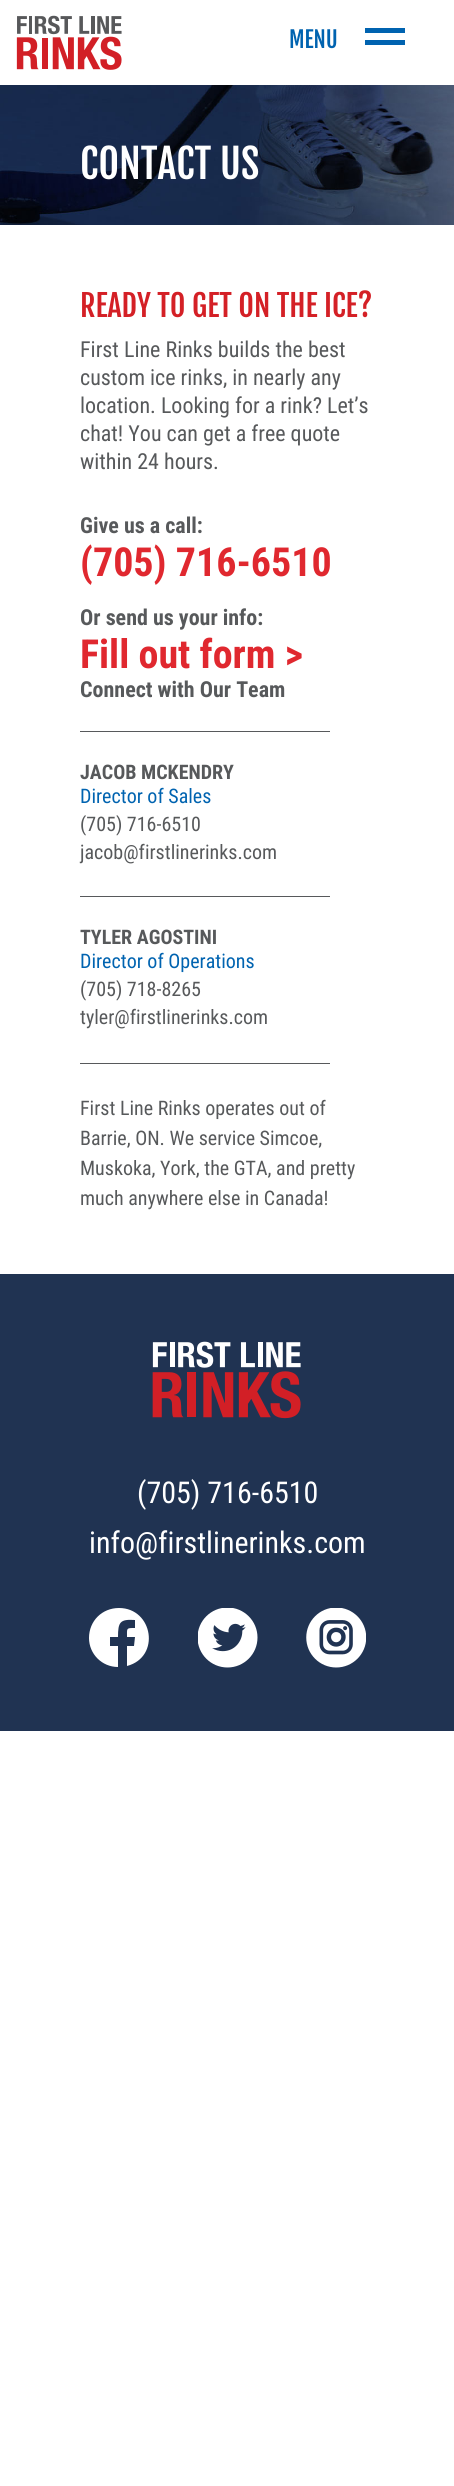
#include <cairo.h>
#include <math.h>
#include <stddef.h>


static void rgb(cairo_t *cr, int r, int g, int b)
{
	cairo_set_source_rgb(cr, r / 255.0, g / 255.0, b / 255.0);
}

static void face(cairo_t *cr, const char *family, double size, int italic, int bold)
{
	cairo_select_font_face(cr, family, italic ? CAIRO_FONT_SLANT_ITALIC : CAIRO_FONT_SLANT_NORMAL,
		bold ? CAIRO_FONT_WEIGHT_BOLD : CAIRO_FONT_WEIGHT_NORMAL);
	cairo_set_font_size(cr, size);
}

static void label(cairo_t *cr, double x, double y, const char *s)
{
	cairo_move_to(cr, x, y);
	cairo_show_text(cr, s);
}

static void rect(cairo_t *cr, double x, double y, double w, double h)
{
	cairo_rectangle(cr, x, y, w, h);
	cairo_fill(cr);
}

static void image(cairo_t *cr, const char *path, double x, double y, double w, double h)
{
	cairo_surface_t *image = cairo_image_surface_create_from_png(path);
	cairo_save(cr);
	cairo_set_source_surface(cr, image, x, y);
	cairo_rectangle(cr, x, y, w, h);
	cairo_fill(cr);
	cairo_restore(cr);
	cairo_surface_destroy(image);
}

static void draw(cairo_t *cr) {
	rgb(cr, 255, 255, 255);
	cairo_paint(cr);
	image(cr, "image0.png", 16, 15, 106, 55);
	face(cr, "Fjalla One", 22.5, 0, 0);
	rgb(cr, 0, 99, 176);
	label(cr, 289, 48, "MENU");
	rect(cr, 365, 28, 40, 5);
	rect(cr, 365, 40, 40, 5);
	image(cr, "image1.png", 0, 85, 454, 140);
	face(cr, "Fjalla One", 40, 0, 0);
	rgb(cr, 255, 255, 255);
	label(cr, 80, 179, "CONTACT US");
	face(cr, "Fjalla One", 30, 0, 0);
	rgb(cr, 212, 32, 38);
	label(cr, 80, 317, "READY TO GET ON THE ICE?");
	face(cr, "Roboto Condensed", 22, 0, 0);
	rgb(cr, 87, 89, 91);
	label(cr, 80, 357, "First Line Rinks builds the best");
	label(cr, 80, 385, "custom ice rinks, in nearly any");
	label(cr, 80, 413, "location. Looking for a rink? Let’s");
	label(cr, 80, 441, "chat! You can get a free quote");
	label(cr, 80, 469, "within 24 hours.");
	face(cr, "Roboto Condensed", 22, 0, 1);
	label(cr, 80, 533, "Give us a call:");
	face(cr, "Roboto Condensed", 40, 0, 1);
	rgb(cr, 224, 40, 47);
	label(cr, 80, 576, "(705) 716-6510");
	face(cr, "Roboto Condensed", 22, 0, 1);
	rgb(cr, 87, 89, 91);
	label(cr, 80, 625, "Or send us your info:");
	face(cr, "Roboto Condensed", 40, 0, 1);
	rgb(cr, 224, 40, 47);
	label(cr, 80, 668, "Fill out form >");
	face(cr, "Roboto Condensed", 22, 0, 1);
	rgb(cr, 87, 89, 91);
	label(cr, 80, 697, "Connect with Our Team");
	rect(cr, 80, 731, 250, 1);
	face(cr, "Roboto Condensed", 20, 0, 1);
	label(cr, 80, 779, "JACOB MCKENDRY");
	face(cr, "Roboto Condensed", 20, 0, 0);
	rgb(cr, 0, 99, 176);
	label(cr, 80, 803, "Director of Sales");
	rgb(cr, 87, 89, 91);
	label(cr, 80, 831, "(705) 716-6510");
	label(cr, 80, 859, "jacob@firstlinerinks.com");
	rect(cr, 80, 896, 250, 1);
	face(cr, "Roboto Condensed", 20, 0, 1);
	label(cr, 80, 944, "TYLER AGOSTINI");
	face(cr, "Roboto Condensed", 20, 0, 0);
	rgb(cr, 0, 99, 176);
	label(cr, 80, 968, "Director of Operations");
	rgb(cr, 87, 89, 91);
	label(cr, 80, 996, "(705) 718-8265");
	label(cr, 80, 1024, "tyler@firstlinerinks.com");
	rect(cr, 80, 1063, 250, 1);
	label(cr, 80, 1115, "First Line Rinks operates out of");
	label(cr, 80, 1145, "Barrie, ON. We service Simcoe,");
	label(cr, 80, 1175, "Muskoka, York, the GTA, and pretty");
	label(cr, 80, 1205, "much anywhere else in Canada!");
	rgb(cr, 32, 51, 82);
	rect(cr, 0, 1274, 454, 457);
	image(cr, "image2.png", 152, 1341, 149, 78);
	face(cr, "Roboto Condensed", 30, 0, 0);
	rgb(cr, 255, 255, 255);
	label(cr, 137, 1503, "(705) 716-6510");
	label(cr, 89, 1553, "info@firstlinerinks.com");
	cairo_new_path(cr);
	cairo_move_to(cr, 119, 1608);
	cairo_curve_to(cr, 102, 1608, 89, 1621, 89, 1638);
	cairo_curve_to(cr, 89, 1654, 102, 1667, 118, 1667);
	cairo_line_to(cr, 118, 1646);
	cairo_line_to(cr, 110, 1646);
	cairo_line_to(cr, 110, 1637);
	cairo_line_to(cr, 118, 1637);
	cairo_curve_to(cr, 118, 1622, 120, 1619, 135, 1620);
	cairo_line_to(cr, 135, 1628);
	cairo_curve_to(cr, 126, 1628, 127, 1628, 127, 1637);
	cairo_line_to(cr, 135, 1637);
	cairo_line_to(cr, 134, 1646);
	cairo_line_to(cr, 127, 1646);
	cairo_line_to(cr, 127, 1666);
	cairo_curve_to(cr, 161, 1657, 153, 1608, 119, 1608);
	cairo_close_path(cr);
	cairo_fill(cr);
	image(cr, "image3.png", 198, 1608, 60, 60);
	image(cr, "image4.png", 306, 1608, 60, 60);
}

int main(void) {
	cairo_surface_t *surface = cairo_image_surface_create(CAIRO_FORMAT_RGB24, 454, 2486);
	cairo_t *cr = cairo_create(surface);
	cairo_font_options_t *options = cairo_font_options_create();
	cairo_font_options_set_hint_metrics(options, CAIRO_HINT_METRICS_OFF);
	cairo_font_options_set_hint_style(options, CAIRO_HINT_STYLE_NONE);
	cairo_set_font_options(cr, options);
	cairo_set_miter_limit(cr, 4);
	draw(cr);
	cairo_surface_write_to_png(surface, "render.png");
	cairo_font_options_destroy(options);
	cairo_destroy(cr);
	cairo_surface_destroy(surface);
	return 0;
}
